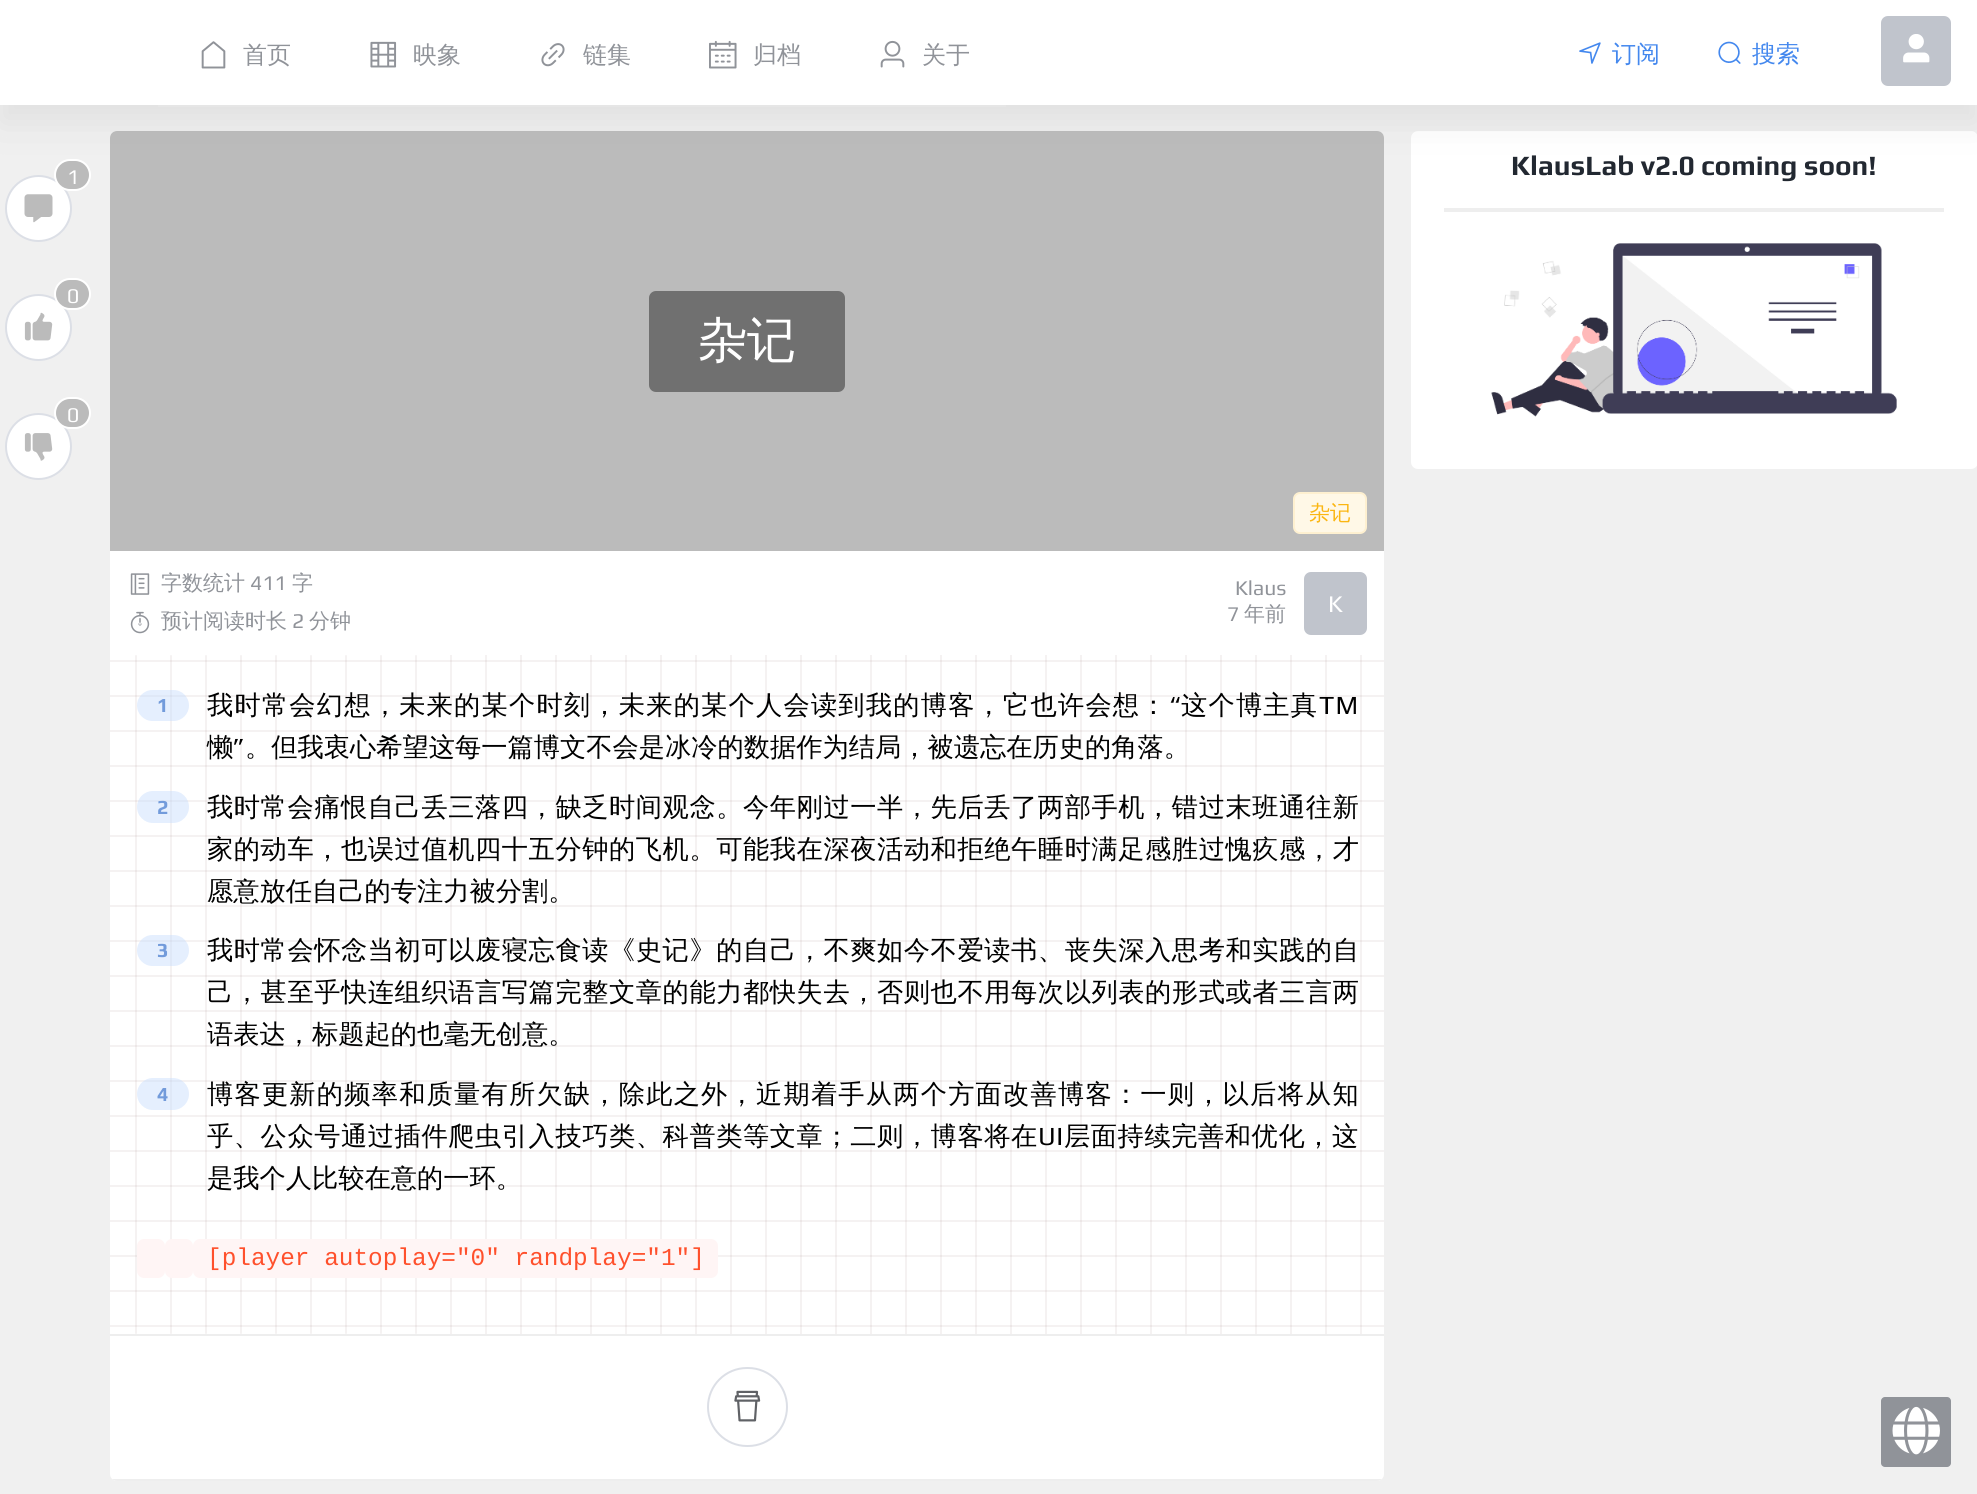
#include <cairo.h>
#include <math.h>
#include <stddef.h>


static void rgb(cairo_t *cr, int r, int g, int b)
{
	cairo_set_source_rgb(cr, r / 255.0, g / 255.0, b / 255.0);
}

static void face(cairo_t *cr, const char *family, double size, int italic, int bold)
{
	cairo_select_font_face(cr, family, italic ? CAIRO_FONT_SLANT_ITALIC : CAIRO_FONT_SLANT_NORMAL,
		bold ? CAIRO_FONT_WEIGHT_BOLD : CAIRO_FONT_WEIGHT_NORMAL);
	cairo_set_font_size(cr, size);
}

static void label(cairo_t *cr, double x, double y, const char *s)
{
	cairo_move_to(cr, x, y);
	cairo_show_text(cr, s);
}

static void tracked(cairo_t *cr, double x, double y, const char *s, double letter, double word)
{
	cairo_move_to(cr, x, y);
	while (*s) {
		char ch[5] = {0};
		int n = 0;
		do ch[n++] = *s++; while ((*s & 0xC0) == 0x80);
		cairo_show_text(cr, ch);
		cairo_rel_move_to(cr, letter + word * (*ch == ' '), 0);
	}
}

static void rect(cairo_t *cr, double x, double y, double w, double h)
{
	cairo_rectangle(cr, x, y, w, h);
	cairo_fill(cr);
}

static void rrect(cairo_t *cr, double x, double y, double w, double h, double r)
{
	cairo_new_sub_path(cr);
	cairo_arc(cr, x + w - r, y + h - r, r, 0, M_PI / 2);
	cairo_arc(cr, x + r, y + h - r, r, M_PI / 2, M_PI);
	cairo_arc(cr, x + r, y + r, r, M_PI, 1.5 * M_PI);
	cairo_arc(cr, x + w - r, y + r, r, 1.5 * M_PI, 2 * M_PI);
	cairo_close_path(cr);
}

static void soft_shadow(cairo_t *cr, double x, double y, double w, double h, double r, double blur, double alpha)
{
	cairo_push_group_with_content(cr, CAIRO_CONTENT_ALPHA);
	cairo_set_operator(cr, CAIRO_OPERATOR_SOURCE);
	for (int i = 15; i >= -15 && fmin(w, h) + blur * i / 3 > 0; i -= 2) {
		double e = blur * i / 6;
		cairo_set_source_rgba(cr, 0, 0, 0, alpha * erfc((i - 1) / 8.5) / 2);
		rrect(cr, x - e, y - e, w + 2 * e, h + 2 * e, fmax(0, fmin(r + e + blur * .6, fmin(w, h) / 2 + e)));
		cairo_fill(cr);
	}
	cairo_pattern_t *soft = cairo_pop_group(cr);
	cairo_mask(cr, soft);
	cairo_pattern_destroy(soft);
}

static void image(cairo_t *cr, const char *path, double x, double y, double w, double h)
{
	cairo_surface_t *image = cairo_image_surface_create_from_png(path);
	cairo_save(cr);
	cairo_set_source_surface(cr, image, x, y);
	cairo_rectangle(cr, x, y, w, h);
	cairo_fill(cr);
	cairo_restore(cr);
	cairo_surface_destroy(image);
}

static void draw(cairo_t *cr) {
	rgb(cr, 240, 240, 240);
	cairo_paint(cr);
	rgb(cr, 255, 255, 255);
	rrect(cr, 110, 131, 1274, 1350, 7);
	cairo_fill(cr);
	cairo_arc(cr, 38.5, 208.5, 32.5, 0, 2 * M_PI);
	cairo_fill_preserve(cr);
	rgb(cr, 220, 223, 230);
	cairo_stroke(cr);
	rgb(cr, 187, 187, 187);
	rrect(cr, 55, 160, 35, 30, 15);
	cairo_fill_preserve(cr);
	rgb(cr, 255, 255, 255);
	cairo_stroke(cr);
	rgb(cr, 187, 187, 187);
	cairo_new_path(cr);
	cairo_move_to(cr, 117, 131);
	cairo_line_to(cr, 1377, 131);
	cairo_curve_to(cr, 1381, 131, 1384, 134, 1384, 138);
	cairo_line_to(cr, 1384, 551);
	cairo_line_to(cr, 110, 551);
	cairo_line_to(cr, 110, 138);
	cairo_curve_to(cr, 110, 134, 113, 131, 117, 131);
	cairo_close_path(cr);
	cairo_fill(cr);
	rgb(cr, 255, 255, 255);
	rrect(cr, 1411, 131, 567, 338, 7);
	cairo_fill(cr);
	rgb(cr, 160, 160, 160);
	soft_shadow(cr, 0, 18, 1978, 105, 0, 17.5, 0.2);
	rgb(cr, 255, 255, 255);
	rect(cr, 0, 0, 1977, 105);
	rgb(cr, 230, 230, 230);
	rect(cr, 158, 105, 848, 2);
	image(cr, "image0.png", 201, 41, 25, 28);
	face(cr, "WenQuanYi Zen Hei Medium", 24, 0, 0);
	rgb(cr, 144, 147, 153);
	label(cr, 243, 63, "首页");
	image(cr, "image1.png", 370, 41, 27, 27);
	label(cr, 413, 63, "映象");
	image(cr, "image2.png", 541, 43, 24, 24);
	label(cr, 583, 63, "链集");
	image(cr, "image3.png", 709, 40, 28, 29);
	label(cr, 753, 63, "归档");
	image(cr, "image4.png", 880, 40, 25, 28);
	label(cr, 922, 63, "关于");
	image(cr, "image5.png", 1579, 42, 22, 22);
	rgb(cr, 68, 136, 238);
	label(cr, 1612, 62, "订阅");
	image(cr, "image6.png", 1718, 41, 23, 23);
	label(cr, 1752, 62, "搜索");
	rgb(cr, 192, 196, 204);
	rrect(cr, 1881, 16, 70, 70, 7);
	cairo_fill(cr);
	image(cr, "image7.png", 1903, 34, 27, 29);
	image(cr, "image8.png", 24, 194, 29, 29);
	face(cr, "Play", 21, 0, 0);
	rgb(cr, 255, 255, 255);
	label(cr, 67, 184, "1");
	cairo_new_path(cr);
	cairo_arc(cr, 38.5, 327.5, 32.5, 0, 2 * M_PI);
	cairo_fill_preserve(cr);
	rgb(cr, 220, 223, 230);
	cairo_stroke(cr);
	image(cr, "image9.png", 24, 312, 29, 29);
	rgb(cr, 187, 187, 187);
	rrect(cr, 55, 279, 35, 30, 15);
	cairo_fill_preserve(cr);
	rgb(cr, 255, 255, 255);
	cairo_stroke(cr);
	label(cr, 67, 303, "0");
	cairo_new_path(cr);
	cairo_arc(cr, 38.5, 446.5, 32.5, 0, 2 * M_PI);
	cairo_fill_preserve(cr);
	rgb(cr, 220, 223, 230);
	cairo_stroke(cr);
	image(cr, "image10.png", 24, 433, 29, 28);
	rgb(cr, 187, 187, 187);
	rrect(cr, 55, 398, 35, 30, 15);
	cairo_fill_preserve(cr);
	rgb(cr, 255, 255, 255);
	cairo_stroke(cr);
	label(cr, 67, 422, "0");
	rgb(cr, 112, 112, 112);
	rrect(cr, 649, 291, 196, 101, 7);
	cairo_fill(cr);
	face(cr, "WenQuanYi Zen Hei Medium", 49, 0, 0);
	rgb(cr, 255, 255, 255);
	label(cr, 698, 357, "杂记");
	rgb(cr, 255, 248, 231);
	rrect(cr, 1294, 493, 72, 40, 6);
	cairo_fill_preserve(cr);
	rgb(cr, 254, 240, 208);
	cairo_stroke(cr);
	face(cr, "WenQuanYi Zen Hei Medium", 21, 0, 0);
	rgb(cr, 251, 182, 18);
	label(cr, 1309, 520, "杂记");
	image(cr, "image11.png", 130, 573, 20, 22);
	rgb(cr, 144, 147, 153);
	label(cr, 161, 590, "字数统计");
	face(cr, "Play", 21, 0, 0);
	label(cr, 250, 590, "411");
	face(cr, "WenQuanYi Zen Hei Medium", 21, 0, 0);
	label(cr, 292, 590, "字");
	image(cr, "image12.png", 130, 611, 20, 23);
	label(cr, 161, 628, "预计阅读时长");
	face(cr, "Play", 21, 0, 0);
	label(cr, 292, 628, "2");
	face(cr, "WenQuanYi Zen Hei Medium", 21, 0, 0);
	label(cr, 309, 628, "分钟");
	face(cr, "Play", 21, 0, 0);
	label(cr, 1235, 595, "Klaus");
	label(cr, 1227, 621, "7");
	face(cr, "WenQuanYi Zen Hei Medium", 21, 0, 0);
	label(cr, 1244, 621, "年前");
	rgb(cr, 192, 196, 204);
	rrect(cr, 1304, 572, 63, 63, 7);
	cairo_fill(cr);
	face(cr, "Play", 24, 0, 0);
	rgb(cr, 255, 255, 255);
	label(cr, 1328, 612, "K");
	image(cr, "image13.png", 110, 660, 1274, 667);
	image(cr, "image14.png", 135, 655, 1227, 679);
	cairo_set_source_rgba(cr, 0.765, 0.855, 0.996, 0.43);
	rrect(cr, 137, 690, 52, 31, 15.5);
	cairo_fill(cr);
	face(cr, "Play", 20, 0, 1);
	rgb(cr, 114, 155, 219);
	label(cr, 157, 712, "1");
	face(cr, "WenQuanYi Zen Hei Medium", 26.25, 0, 0);
	rgb(cr, 0, 0, 0);
	tracked(cr, 207, 714, "我时常会幻想，未来的某个时刻，未来的某个人会读到我的博客，它也许会想：", 1.2, 0);
	face(cr, "Play", 26.25, 0, 0);
	tracked(cr, 1169, 714, "“", 1.2, 0);
	face(cr, "WenQuanYi Zen Hei Medium", 26.25, 0, 0);
	tracked(cr, 1181, 714, "这个博主真", 1.2, 0);
	face(cr, "Play", 26.25, 0, 0);
	tracked(cr, 1319, 714, "TM", 1.2, 0);
	face(cr, "WenQuanYi Zen Hei Medium", 26.25, 0, 0);
	label(cr, 207, 756, "懒");
	face(cr, "Play", 26.25, 0, 0);
	label(cr, 233, 756, "”");
	face(cr, "WenQuanYi Zen Hei Medium", 26.25, 0, 0);
	label(cr, 245, 756, "。但我衷心希望这每一篇博文不会是冰冷的数据作为结局，被遗忘在历史的角落。");
	cairo_set_source_rgba(cr, 0.765, 0.855, 0.996, 0.43);
	rrect(cr, 137, 791, 52, 32, 16);
	cairo_fill(cr);
	face(cr, "Play", 20, 0, 1);
	rgb(cr, 114, 155, 219);
	label(cr, 157, 814, "2");
	face(cr, "WenQuanYi Zen Hei Medium", 26.25, 0, 0);
	rgb(cr, 0, 0, 0);
	tracked(cr, 207, 816, "我时常会痛恨自己丢三落四，缺乏时间观念。今年刚过一半，先后丢了两部手机，错过末班通往新", 0.55, 0);
	tracked(cr, 207, 858, "家的动车，也误过值机四十五分钟的飞机。可能我在深夜活动和拒绝午睡时满足感胜过愧疚感，才", 0.55, 0);
	label(cr, 207, 900, "愿意放任自己的专注力被分割。");
	cairo_set_source_rgba(cr, 0.765, 0.855, 0.996, 0.43);
	rrect(cr, 137, 935, 52, 31, 15.5);
	cairo_fill(cr);
	face(cr, "Play", 20, 0, 1);
	rgb(cr, 114, 155, 219);
	label(cr, 157, 957, "3");
	face(cr, "WenQuanYi Zen Hei Medium", 26.25, 0, 0);
	rgb(cr, 0, 0, 0);
	tracked(cr, 207, 959, "我时常会怀念当初可以废寝忘食读《史记》的自己，不爽如今不爱读书、丧失深入思考和实践的自", 0.55, 0);
	tracked(cr, 207, 1001, "己，甚至乎快连组织语言写篇完整文章的能力都快失去，否则也不用每次以列表的形式或者三言两", 0.55, 0);
	label(cr, 207, 1043, "语表达，标题起的也毫无创意。");
	cairo_set_source_rgba(cr, 0.765, 0.855, 0.996, 0.43);
	rrect(cr, 137, 1078, 52, 32, 16);
	cairo_fill(cr);
	face(cr, "Play", 20, 0, 1);
	rgb(cr, 114, 155, 219);
	label(cr, 157, 1101, "4");
	face(cr, "WenQuanYi Zen Hei Medium", 26.25, 0, 0);
	rgb(cr, 0, 0, 0);
	tracked(cr, 207, 1103, "博客更新的频率和质量有所欠缺，除此之外，近期着手从两个方面改善博客：一则，以后将从知", 1.2, 0);
	tracked(cr, 207, 1145, "乎、公众号通过插件爬虫引入技巧类、科普类等文章；二则，博客将在", 0.55, 0);
	face(cr, "Play", 26.25, 0, 0);
	tracked(cr, 1038, 1145, "UI", 0.55, 0);
	face(cr, "WenQuanYi Zen Hei Medium", 26.25, 0, 0);
	tracked(cr, 1064, 1145, "层面持续完善和优化，这", 0.55, 0);
	label(cr, 207, 1187, "是我个人比较在意的一环。");
	rgb(cr, 255, 245, 245);
	rrect(cr, 137, 1239, 28, 39, 7);
	cairo_fill(cr);
	rrect(cr, 165, 1239, 28, 39, 7);
	cairo_fill(cr);
	rrect(cr, 193, 1239, 525, 39, 7);
	cairo_fill(cr);
	face(cr, "Liberation Mono", 24.4, 0, 0);
	rgb(cr, 255, 80, 44);
	label(cr, 207, 1265, "[player autoplay=\"0\" randplay=\"1\"]");
	rgb(cr, 238, 238, 238);
	rect(cr, 110, 1334, 1274, 2);
	cairo_save(cr);
	rrect(cr, 110, 131, 1274, 1350, 7);
	cairo_clip(cr);
	rect(cr, 110, 1479, 1274, 2);
	cairo_restore(cr);
	rrect(cr, 708, 1368, 79, 78, 39);
	rgb(cr, 220, 223, 230);
	cairo_stroke(cr);
	image(cr, "image15.png", 734, 1390, 27, 32);
	rgb(cr, 238, 238, 238);
	rect(cr, 1444, 208, 500, 4);
	face(cr, "Play", 28, 0, 1);
	rgb(cr, 34, 40, 49);
	label(cr, 1511, 175, "KlausLab v2.0 coming soon!");
	image(cr, "image16.png", 1491, 243, 406, 174);
	rgb(cr, 144, 147, 153);
	rrect(cr, 1881, 1397, 70, 70, 4);
	cairo_fill(cr);
	image(cr, "image17.png", 1892, 1406, 48, 49);
}

int main(void) {
	cairo_surface_t *surface = cairo_image_surface_create(CAIRO_FORMAT_RGB24, 1977, 1494);
	cairo_t *cr = cairo_create(surface);
	cairo_font_options_t *options = cairo_font_options_create();
	cairo_font_options_set_hint_metrics(options, CAIRO_HINT_METRICS_OFF);
	cairo_font_options_set_hint_style(options, CAIRO_HINT_STYLE_NONE);
	cairo_set_font_options(cr, options);
	cairo_set_miter_limit(cr, 4);
	draw(cr);
	cairo_surface_write_to_png(surface, "render.png");
	cairo_font_options_destroy(options);
	cairo_destroy(cr);
	cairo_surface_destroy(surface);
	return 0;
}
